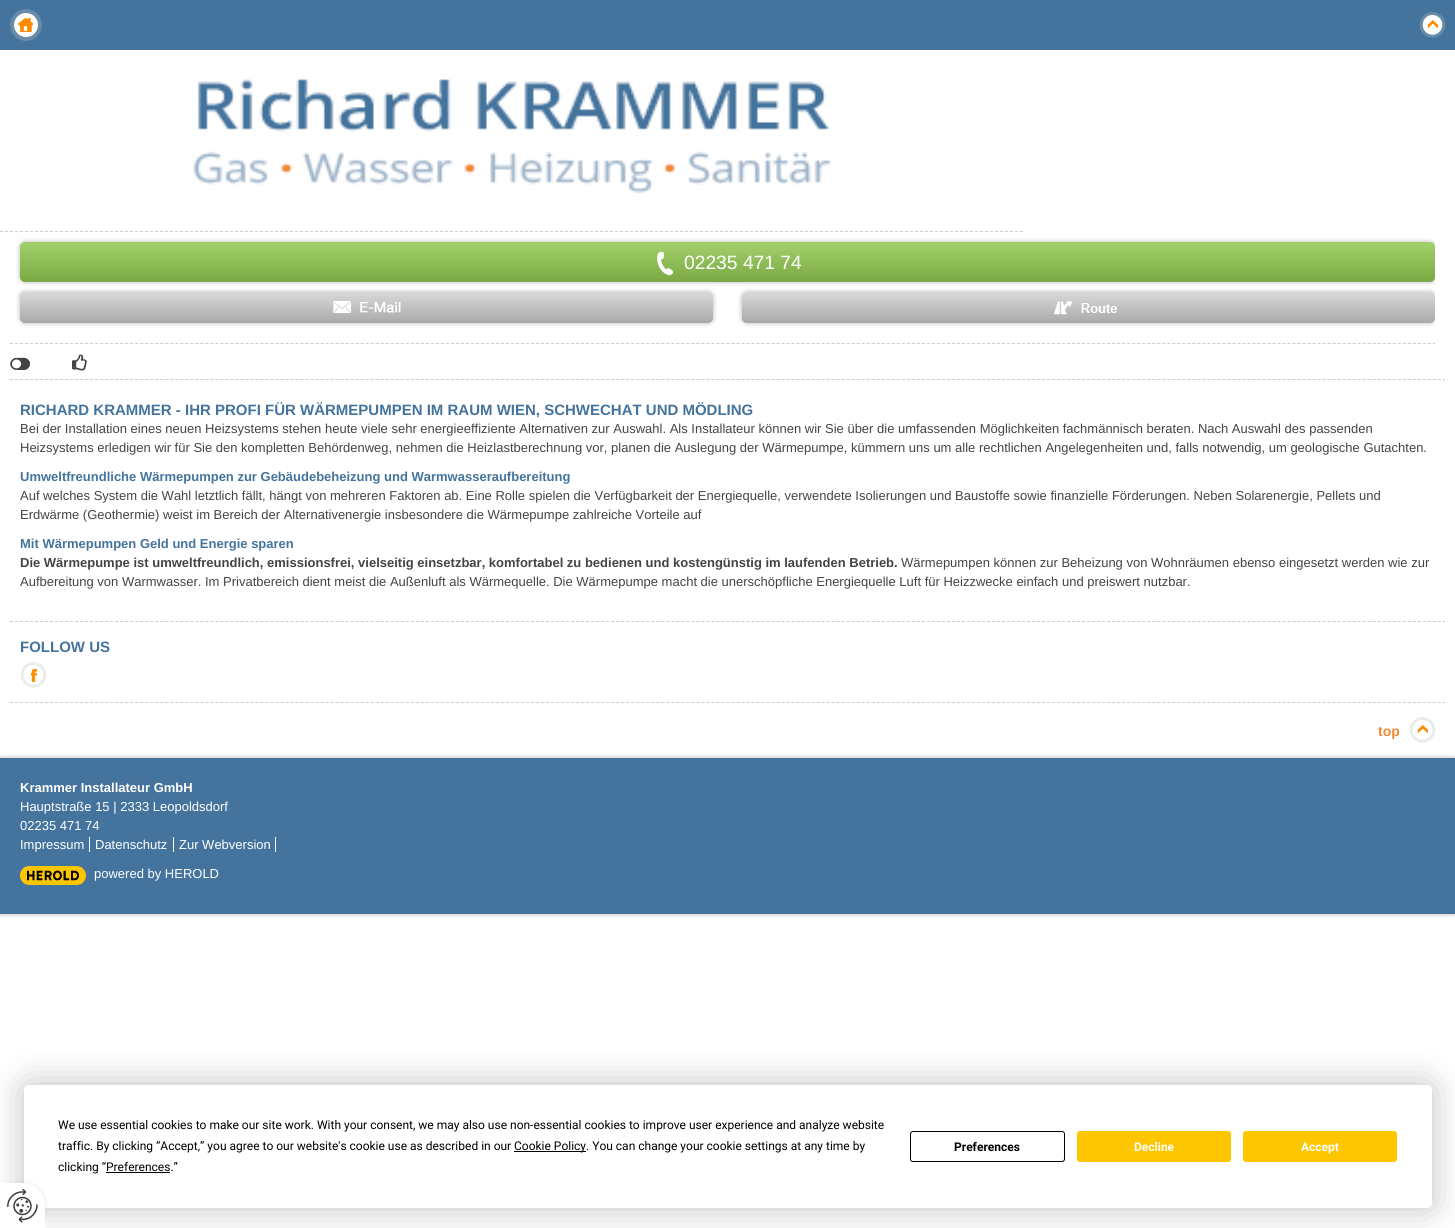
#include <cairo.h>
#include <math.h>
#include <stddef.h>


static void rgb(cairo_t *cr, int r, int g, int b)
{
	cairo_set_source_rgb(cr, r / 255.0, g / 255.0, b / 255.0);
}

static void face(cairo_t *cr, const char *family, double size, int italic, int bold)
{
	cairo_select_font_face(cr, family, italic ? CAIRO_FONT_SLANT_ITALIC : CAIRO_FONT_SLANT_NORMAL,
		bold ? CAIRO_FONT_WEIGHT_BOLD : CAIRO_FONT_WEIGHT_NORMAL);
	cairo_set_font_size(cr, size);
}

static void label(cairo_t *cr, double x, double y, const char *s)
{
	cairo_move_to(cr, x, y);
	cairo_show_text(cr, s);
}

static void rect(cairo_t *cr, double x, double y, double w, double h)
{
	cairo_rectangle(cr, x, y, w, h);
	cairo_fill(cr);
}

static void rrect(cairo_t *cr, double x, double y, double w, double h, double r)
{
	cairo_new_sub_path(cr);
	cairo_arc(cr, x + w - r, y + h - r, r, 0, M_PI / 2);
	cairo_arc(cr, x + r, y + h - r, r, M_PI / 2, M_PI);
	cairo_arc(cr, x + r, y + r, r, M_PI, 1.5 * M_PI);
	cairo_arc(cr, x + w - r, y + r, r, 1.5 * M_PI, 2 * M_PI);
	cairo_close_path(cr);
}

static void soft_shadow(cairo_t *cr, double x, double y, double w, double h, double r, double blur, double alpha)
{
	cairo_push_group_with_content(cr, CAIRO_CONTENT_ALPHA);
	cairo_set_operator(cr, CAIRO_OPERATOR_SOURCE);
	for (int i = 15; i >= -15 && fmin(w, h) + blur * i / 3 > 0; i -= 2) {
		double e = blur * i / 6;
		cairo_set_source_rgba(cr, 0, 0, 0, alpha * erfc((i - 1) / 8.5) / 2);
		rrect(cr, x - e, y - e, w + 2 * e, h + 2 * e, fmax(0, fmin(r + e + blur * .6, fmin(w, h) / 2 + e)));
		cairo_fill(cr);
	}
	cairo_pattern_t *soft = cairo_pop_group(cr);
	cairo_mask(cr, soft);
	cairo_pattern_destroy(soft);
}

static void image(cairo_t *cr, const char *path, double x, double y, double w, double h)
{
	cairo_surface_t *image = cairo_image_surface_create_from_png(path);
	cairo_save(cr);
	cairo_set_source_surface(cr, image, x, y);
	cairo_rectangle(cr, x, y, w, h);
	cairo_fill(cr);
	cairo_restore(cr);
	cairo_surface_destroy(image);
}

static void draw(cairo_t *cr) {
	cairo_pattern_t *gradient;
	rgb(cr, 255, 255, 255);
	cairo_paint(cr);
	rgb(cr, 68, 116, 157);
	rect(cr, 0, 0, 1455, 50);
	image(cr, "image0.png", 10, 9, 32, 32);
	image(cr, "image1.png", 1419, 12, 27, 26);
	cairo_new_path(cr);
	cairo_move_to(cr, 0, 231.5);
	cairo_line_to(cr, 1024, 231.5);
	rgb(cr, 204, 204, 204);
	cairo_set_line_width(cr, 1);
	cairo_set_dash(cr, (double[]){3, 2}, 2, 0);
	cairo_stroke(cr);
	image(cr, "image2.png", 193, 79, 638, 115);
	cairo_new_path(cr);
	cairo_move_to(cr, 10, 379.5);
	cairo_line_to(cr, 1445, 379.5);
	cairo_set_dash(cr, (double[]){3, 2.01}, 2, 0);
	cairo_stroke(cr);
	cairo_new_path(cr);
	cairo_move_to(cr, 10, 343.5);
	cairo_line_to(cr, 1435, 343.5);
	cairo_stroke(cr);
	cairo_save(cr);
	cairo_rectangle(cr, 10, 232, 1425, 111);
	cairo_clip(cr);
	rgb(cr, 0, 0, 0);
	soft_shadow(cr, 20, 242, 1415, 40, 5, 2.5, 0.3);
	cairo_restore(cr);
	gradient = cairo_pattern_create_linear(-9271, 242, -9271, 282);
	cairo_pattern_add_color_stop_rgba(gradient, 0, 0.639, 0.82, 0.42, 1);
	cairo_pattern_add_color_stop_rgba(gradient, 1, 0.482, 0.659, 0.267, 1);
	cairo_set_source(cr, gradient);
	cairo_pattern_destroy(gradient);
	rrect(cr, 20, 242, 1415, 40, 5);
	cairo_fill(cr);
	image(cr, "image3.png", 657, 252, 16, 24);
	face(cr, "Liberation Sans", 19.25, 0, 0);
	rgb(cr, 255, 255, 255);
	label(cr, 684, 269, "02235 471 74");
	rgb(cr, 0, 0, 0);
	soft_shadow(cr, 20, 292, 693, 31, 5, 2.5, 0.3);
	gradient = cairo_pattern_create_linear(-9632, 292, -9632, 323);
	cairo_pattern_add_color_stop_rgba(gradient, 0, 0.851, 0.851, 0.851, 1);
	cairo_pattern_add_color_stop_rgba(gradient, 1, 0.663, 0.663, 0.663, 1);
	cairo_set_source(cr, gradient);
	cairo_pattern_destroy(gradient);
	rrect(cr, 20, 292, 693, 31, 5);
	cairo_fill(cr);
	image(cr, "image4.png", 333, 301, 68, 13);
	cairo_save(cr);
	cairo_rectangle(cr, 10, 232, 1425, 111);
	cairo_clip(cr);
	rgb(cr, 0, 0, 0);
	soft_shadow(cr, 742, 292, 693, 31, 5, 2.5, 0.3);
	cairo_restore(cr);
	gradient = cairo_pattern_create_linear(-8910, 292, -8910, 323);
	cairo_pattern_add_color_stop_rgba(gradient, 0, 0.851, 0.851, 0.851, 1);
	cairo_pattern_add_color_stop_rgba(gradient, 1, 0.663, 0.663, 0.663, 1);
	cairo_set_source(cr, gradient);
	cairo_pattern_destroy(gradient);
	rrect(cr, 742, 292, 693, 31, 5);
	cairo_fill(cr);
	image(cr, "image5.png", 1053, 301, 65, 14);
	image(cr, "image6.png", 10, 356, 20, 14);
	image(cr, "image7.png", 72, 354, 15, 18);
	face(cr, "Liberation Sans", 15, 0, 1);
	rgb(cr, 68, 116, 157);
	label(cr, 20, 415, "RICHARD KRAMMER - IHR PROFI FÜR WÄRMEPUMPEN IM RAUM WIEN, SCHWECHAT UND MÖDLING");
	face(cr, "Liberation Sans", 13, 0, 0);
	rgb(cr, 68, 68, 68);
	label(cr, 20, 433, "Bei der Installation eines neuen Heizsystems stehen heute viele sehr energieeffiziente Alternativen zur Auswahl. Als Installateur können wir Sie über die umfassenden Möglichkeiten fachmännisch beraten. Nach Auswahl des passenden");
	label(cr, 20, 452, "Heizsystems erledigen wir für Sie den kompletten Behördenweg, nehmen die Heizlastberechnung vor, planen die Auslegung der Wärmepumpe, kümmern uns um alle rechtlichen Angelegenheiten und, falls notwendig, um geologische Gutachten.");
	face(cr, "Liberation Sans", 13, 0, 1);
	rgb(cr, 68, 116, 157);
	label(cr, 20, 481, "Umweltfreundliche Wärmepumpen zur Gebäudebeheizung und Warmwasseraufbereitung");
	face(cr, "Liberation Sans", 13, 0, 0);
	rgb(cr, 68, 68, 68);
	label(cr, 20, 500, "Auf welches System die Wahl letztlich fällt, hängt von mehreren Faktoren ab. Eine Rolle spielen die Verfügbarkeit der Energiequelle, verwendete Isolierungen und Baustoffe sowie finanzielle Förderungen. Neben Solarenergie, Pellets und");
	label(cr, 20, 519, "Erdwärme (Geothermie) weist im Bereich der Alternativenergie insbesondere die Wärmepumpe zahlreiche Vorteile auf");
	face(cr, "Liberation Sans", 13, 0, 1);
	rgb(cr, 68, 116, 157);
	label(cr, 20, 548, "Mit Wärmepumpen Geld und Energie sparen");
	rgb(cr, 68, 68, 68);
	label(cr, 20, 567, "Die Wärmepumpe ist umweltfreundlich, emissionsfrei, vielseitig einsetzbar, komfortabel zu bedienen und kostengünstig im laufenden Betrieb.");
	face(cr, "Liberation Sans", 13, 0, 0);
	label(cr, 901, 567, "Wärmepumpen können zur Beheizung von Wohnräumen ebenso eingesetzt werden wie zur");
	label(cr, 20, 586, "Aufbereitung von Warmwasser. Im Privatbereich dient meist die Außenluft als Wärmequelle. Die Wärmepumpe macht die unerschöpfliche Energiequelle Luft für Heizzwecke einfach und preiswert nutzbar.");
	cairo_new_path(cr);
	cairo_move_to(cr, 10, 621.5);
	cairo_line_to(cr, 1445, 621.5);
	rgb(cr, 204, 204, 204);
	cairo_stroke(cr);
	face(cr, "Liberation Sans", 15, 0, 1);
	rgb(cr, 68, 116, 157);
	label(cr, 20, 652, "FOLLOW US");
	image(cr, "image8.png", 20, 662, 27, 26);
	cairo_new_path(cr);
	cairo_move_to(cr, 10, 702.5);
	cairo_line_to(cr, 1445, 702.5);
	rgb(cr, 204, 204, 204);
	cairo_stroke(cr);
	image(cr, "image9.png", 1409, 717, 27, 26);
	face(cr, "Liberation Sans", 14, 0, 1);
	rgb(cr, 243, 134, 48);
	label(cr, 1378, 736, "top");
	rgb(cr, 0, 0, 0);
	soft_shadow(cr, 0, 758, 1455, 156, 0, 2.5, 0.3);
	rgb(cr, 68, 116, 157);
	rect(cr, 0, 758, 1455, 156);
	face(cr, "Liberation Sans", 13, 0, 1);
	rgb(cr, 255, 255, 255);
	label(cr, 20, 792, "Krammer Installateur GmbH");
	face(cr, "Liberation Sans", 13, 0, 0);
	label(cr, 20, 811, "Hauptstraße 15 | 2333 Leopoldsdorf");
	label(cr, 20, 830, "02235 471 74");
	label(cr, 20, 849, "Impressum");
	rect(cr, 89, 837, 1, 15);
	label(cr, 95, 849, "Datenschutz");
	rect(cr, 173, 837, 1, 15);
	label(cr, 179, 849, "Zur Webversion");
	rect(cr, 275, 837, 1, 15);
	image(cr, "image10.png", 20, 866, 66, 19);
	label(cr, 94, 878, "powered by HEROLD");
	rgb(cr, 0, 0, 0);
	soft_shadow(cr, 24, 1085, 1408, 123, 5, 17.5, 0.25);
	rgb(cr, 255, 255, 255);
	rrect(cr, 24, 1085, 1408, 123, 5);
	cairo_fill(cr);
	face(cr, "Roboto", 12, 0, 0);
	rgb(cr, 0, 0, 0);
	label(cr, 58, 1129, "We use essential cookies to make our site work. With your consent, we may also use non-essential cookies to improve user experience and analyze website");
	label(cr, 58, 1150, "traffic. By clicking “Accept,” you agree to our website's cookie use as described in our");
	rect(cr, 514, 1151, 72, 1);
	label(cr, 514, 1150, "Cookie Policy. You can change your cookie settings at any time by");
	label(cr, 58, 1171, "clicking “Preferences.”");
	rect(cr, 106, 1172, 64, 1);
	rrect(cr, 910.5, 1131.5, 154, 30, 2.5);
	cairo_set_dash(cr, NULL, 0, 0);
	cairo_stroke(cr);
	face(cr, "Roboto", 12, 0, 1);
	label(cr, 954, 1151, "Preferences");
	rgb(cr, 254, 198, 0);
	rrect(cr, 1077.5, 1131.5, 153, 30, 2.5);
	cairo_fill_preserve(cr);
	cairo_stroke(cr);
	rgb(cr, 255, 255, 255);
	label(cr, 1134, 1151, "Decline");
	rgb(cr, 254, 198, 0);
	rrect(cr, 1243.5, 1131.5, 153, 30, 2.5);
	cairo_fill_preserve(cr);
	cairo_stroke(cr);
	rgb(cr, 255, 255, 255);
	label(cr, 1301, 1151, "Accept");
	rgb(cr, 0, 0, 0);
	soft_shadow(cr, 0, 1183, 45, 45, 22.5, 2.5, 0.1);
	rgb(cr, 255, 255, 255);
	cairo_new_path(cr);
	cairo_move_to(cr, 0, 1183);
	cairo_line_to(cr, 22.5, 1183);
	cairo_curve_to(cr, 35, 1183, 45, 1193, 45, 1205.5);
	cairo_line_to(cr, 45, 1228);
	cairo_line_to(cr, 0, 1228);
	cairo_close_path(cr);
	cairo_fill(cr);
	image(cr, "image11.png", 7, 1189, 31, 34);
}

int main(void) {
	cairo_surface_t *surface = cairo_image_surface_create(CAIRO_FORMAT_RGB24, 1455, 1228);
	cairo_t *cr = cairo_create(surface);
	cairo_font_options_t *options = cairo_font_options_create();
	cairo_font_options_set_hint_metrics(options, CAIRO_HINT_METRICS_OFF);
	cairo_font_options_set_hint_style(options, CAIRO_HINT_STYLE_NONE);
	cairo_set_font_options(cr, options);
	cairo_set_miter_limit(cr, 4);
	draw(cr);
	cairo_surface_write_to_png(surface, "render.png");
	cairo_font_options_destroy(options);
	cairo_destroy(cr);
	cairo_surface_destroy(surface);
	return 0;
}
